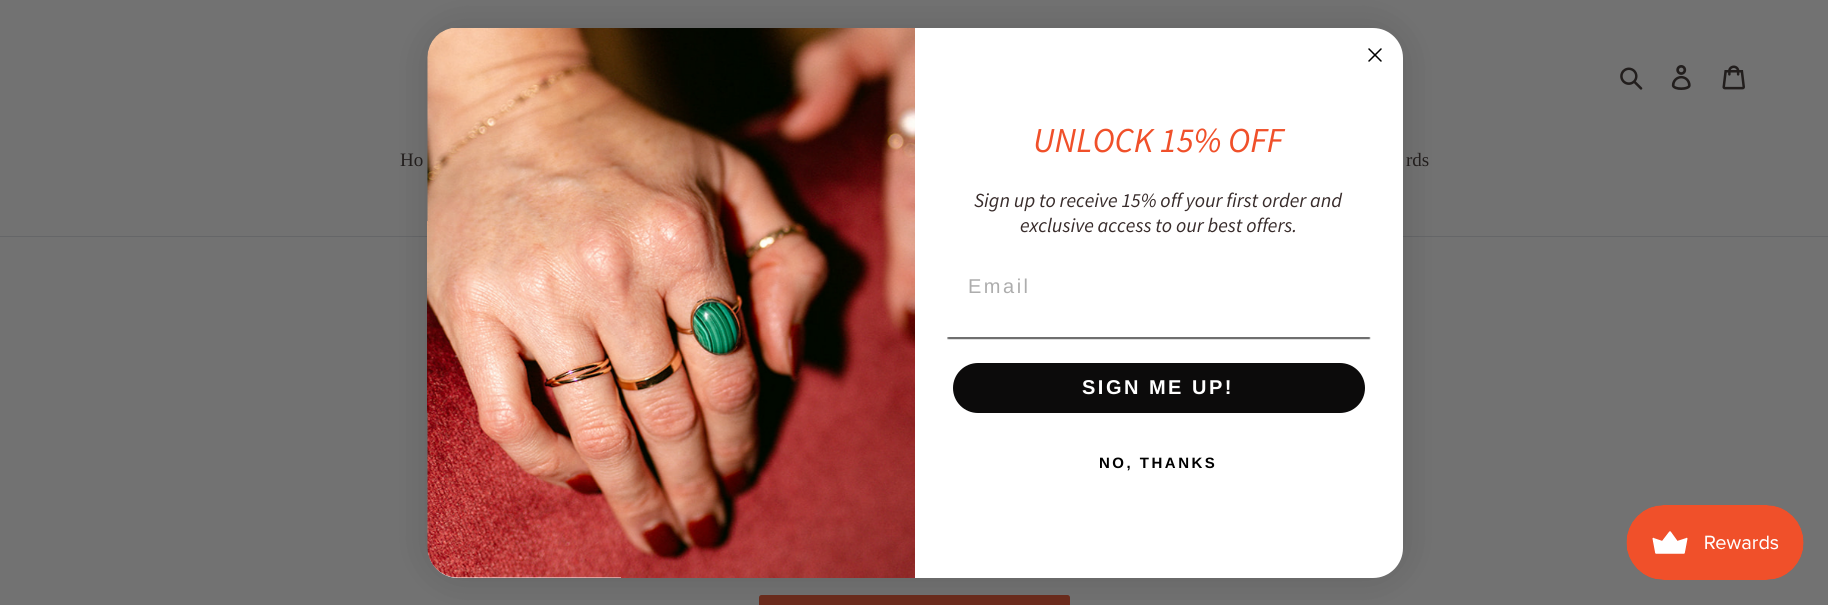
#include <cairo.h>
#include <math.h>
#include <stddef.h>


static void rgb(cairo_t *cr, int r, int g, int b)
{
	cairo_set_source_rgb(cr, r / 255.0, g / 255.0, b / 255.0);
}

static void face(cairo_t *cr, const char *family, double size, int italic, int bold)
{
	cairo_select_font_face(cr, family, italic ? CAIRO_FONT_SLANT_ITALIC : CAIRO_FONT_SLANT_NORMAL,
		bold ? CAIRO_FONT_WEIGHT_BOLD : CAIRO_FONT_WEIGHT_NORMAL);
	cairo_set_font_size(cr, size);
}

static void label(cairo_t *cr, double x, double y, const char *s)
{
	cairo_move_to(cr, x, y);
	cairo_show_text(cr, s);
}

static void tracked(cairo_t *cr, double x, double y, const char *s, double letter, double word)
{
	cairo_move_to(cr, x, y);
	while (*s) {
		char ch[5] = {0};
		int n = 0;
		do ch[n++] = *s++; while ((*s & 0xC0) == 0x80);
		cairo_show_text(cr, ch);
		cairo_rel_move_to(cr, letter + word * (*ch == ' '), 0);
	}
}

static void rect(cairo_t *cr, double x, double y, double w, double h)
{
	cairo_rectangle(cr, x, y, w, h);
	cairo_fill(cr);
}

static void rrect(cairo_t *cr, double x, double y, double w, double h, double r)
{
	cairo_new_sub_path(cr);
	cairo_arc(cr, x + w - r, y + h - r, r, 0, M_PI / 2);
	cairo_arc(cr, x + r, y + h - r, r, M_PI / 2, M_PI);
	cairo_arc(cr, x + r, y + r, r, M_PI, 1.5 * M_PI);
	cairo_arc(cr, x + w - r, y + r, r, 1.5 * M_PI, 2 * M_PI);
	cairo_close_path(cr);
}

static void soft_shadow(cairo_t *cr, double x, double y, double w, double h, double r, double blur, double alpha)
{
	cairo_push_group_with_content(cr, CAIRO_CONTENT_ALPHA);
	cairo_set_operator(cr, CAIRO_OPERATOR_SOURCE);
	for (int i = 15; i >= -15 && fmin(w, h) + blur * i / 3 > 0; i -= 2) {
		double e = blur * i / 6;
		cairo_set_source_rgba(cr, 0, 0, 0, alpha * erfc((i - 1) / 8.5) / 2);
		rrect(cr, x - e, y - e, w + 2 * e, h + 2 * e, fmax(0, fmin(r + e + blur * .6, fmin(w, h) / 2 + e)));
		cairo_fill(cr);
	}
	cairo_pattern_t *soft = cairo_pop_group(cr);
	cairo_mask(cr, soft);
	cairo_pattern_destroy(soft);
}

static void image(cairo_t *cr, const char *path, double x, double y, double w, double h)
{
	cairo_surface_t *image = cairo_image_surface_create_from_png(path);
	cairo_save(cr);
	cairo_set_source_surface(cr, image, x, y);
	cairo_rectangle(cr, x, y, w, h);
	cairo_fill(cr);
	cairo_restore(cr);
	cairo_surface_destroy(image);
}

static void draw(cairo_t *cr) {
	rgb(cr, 114, 114, 114);
	cairo_paint(cr);
	rgb(cr, 101, 102, 104);
	rect(cr, 0, 236, 1828, 1);
	rgb(cr, 108, 44, 29);
	rrect(cr, 759, 595, 311, 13, 2.5);
	cairo_fill(cr);
	rgb(cr, 0, 0, 0);
	soft_shadow(cr, 428, 28, 975, 550, 30, 19, 0.15);
	rgb(cr, 255, 255, 255);
	rrect(cr, 428, 28, 975, 550, 30);
	cairo_fill(cr);
	cairo_new_path(cr);
	cairo_move_to(cr, 1369, 49);
	cairo_line_to(cr, 1381, 61);
	cairo_move_to(cr, 1369, 61);
	cairo_line_to(cr, 1381, 49);
	cairo_close_path(cr);
	rgb(cr, 0, 0, 0);
	cairo_set_line_width(cr, 1.5);
	cairo_set_line_cap(cr, CAIRO_LINE_CAP_ROUND);
	cairo_set_line_join(cr, CAIRO_LINE_JOIN_ROUND);
	cairo_stroke(cr);
	image(cr, "image0.png", 427, 28, 488, 550);
	face(cr, "Source Sans Pro", 35, 1, 0);
	rgb(cr, 240, 80, 42);
	label(cr, 1033, 152, "UNLOCK 15% OFF");
	face(cr, "Source Sans Pro", 20, 1, 0);
	rgb(cr, 56, 44, 43);
	label(cr, 974, 207, "Sign up to receive 15% off your first order and");
	label(cr, 1020, 232, "exclusive access to our best offers.");
	face(cr, "Liberation Sans", 20, 0, 0);
	rgb(cr, 173, 173, 173);
	tracked(cr, 968, 293, "Email", 2.5, 0);
	image(cr, "image1.png", 947, 337, 424, 3);
	rgb(cr, 12, 11, 11);
	rrect(cr, 953, 363, 412, 50, 25);
	cairo_fill(cr);
	face(cr, "Liberation Sans", 20, 0, 1);
	rgb(cr, 255, 255, 255);
	tracked(cr, 1082, 394, "SIGN ME UP!", 2.5, 0);
	face(cr, "Liberation Sans", 15, 0, 1);
	rgb(cr, 0, 0, 0);
	tracked(cr, 1099, 468, "NO, THANKS", 2.5, 0);
	image(cr, "image2.png", 1620, 67, 23, 23);
	image(cr, "image3.png", 1671, 65, 20, 25);
	image(cr, "image4.png", 1722, 65, 23, 25);
	face(cr, "Liberation Serif", 19, 0, 0);
	rgb(cr, 34, 30, 29);
	label(cr, 400, 166, "Ho");
	label(cr, 1406, 166, "rds");
	image(cr, "image5.png", 1626, 505, 178, 75);
}

int main(void) {
	cairo_surface_t *surface = cairo_image_surface_create(CAIRO_FORMAT_RGB24, 1828, 605);
	cairo_t *cr = cairo_create(surface);
	cairo_font_options_t *options = cairo_font_options_create();
	cairo_font_options_set_hint_metrics(options, CAIRO_HINT_METRICS_OFF);
	cairo_font_options_set_hint_style(options, CAIRO_HINT_STYLE_NONE);
	cairo_set_font_options(cr, options);
	cairo_set_miter_limit(cr, 4);
	draw(cr);
	cairo_surface_write_to_png(surface, "render.png");
	cairo_font_options_destroy(options);
	cairo_destroy(cr);
	cairo_surface_destroy(surface);
	return 0;
}
